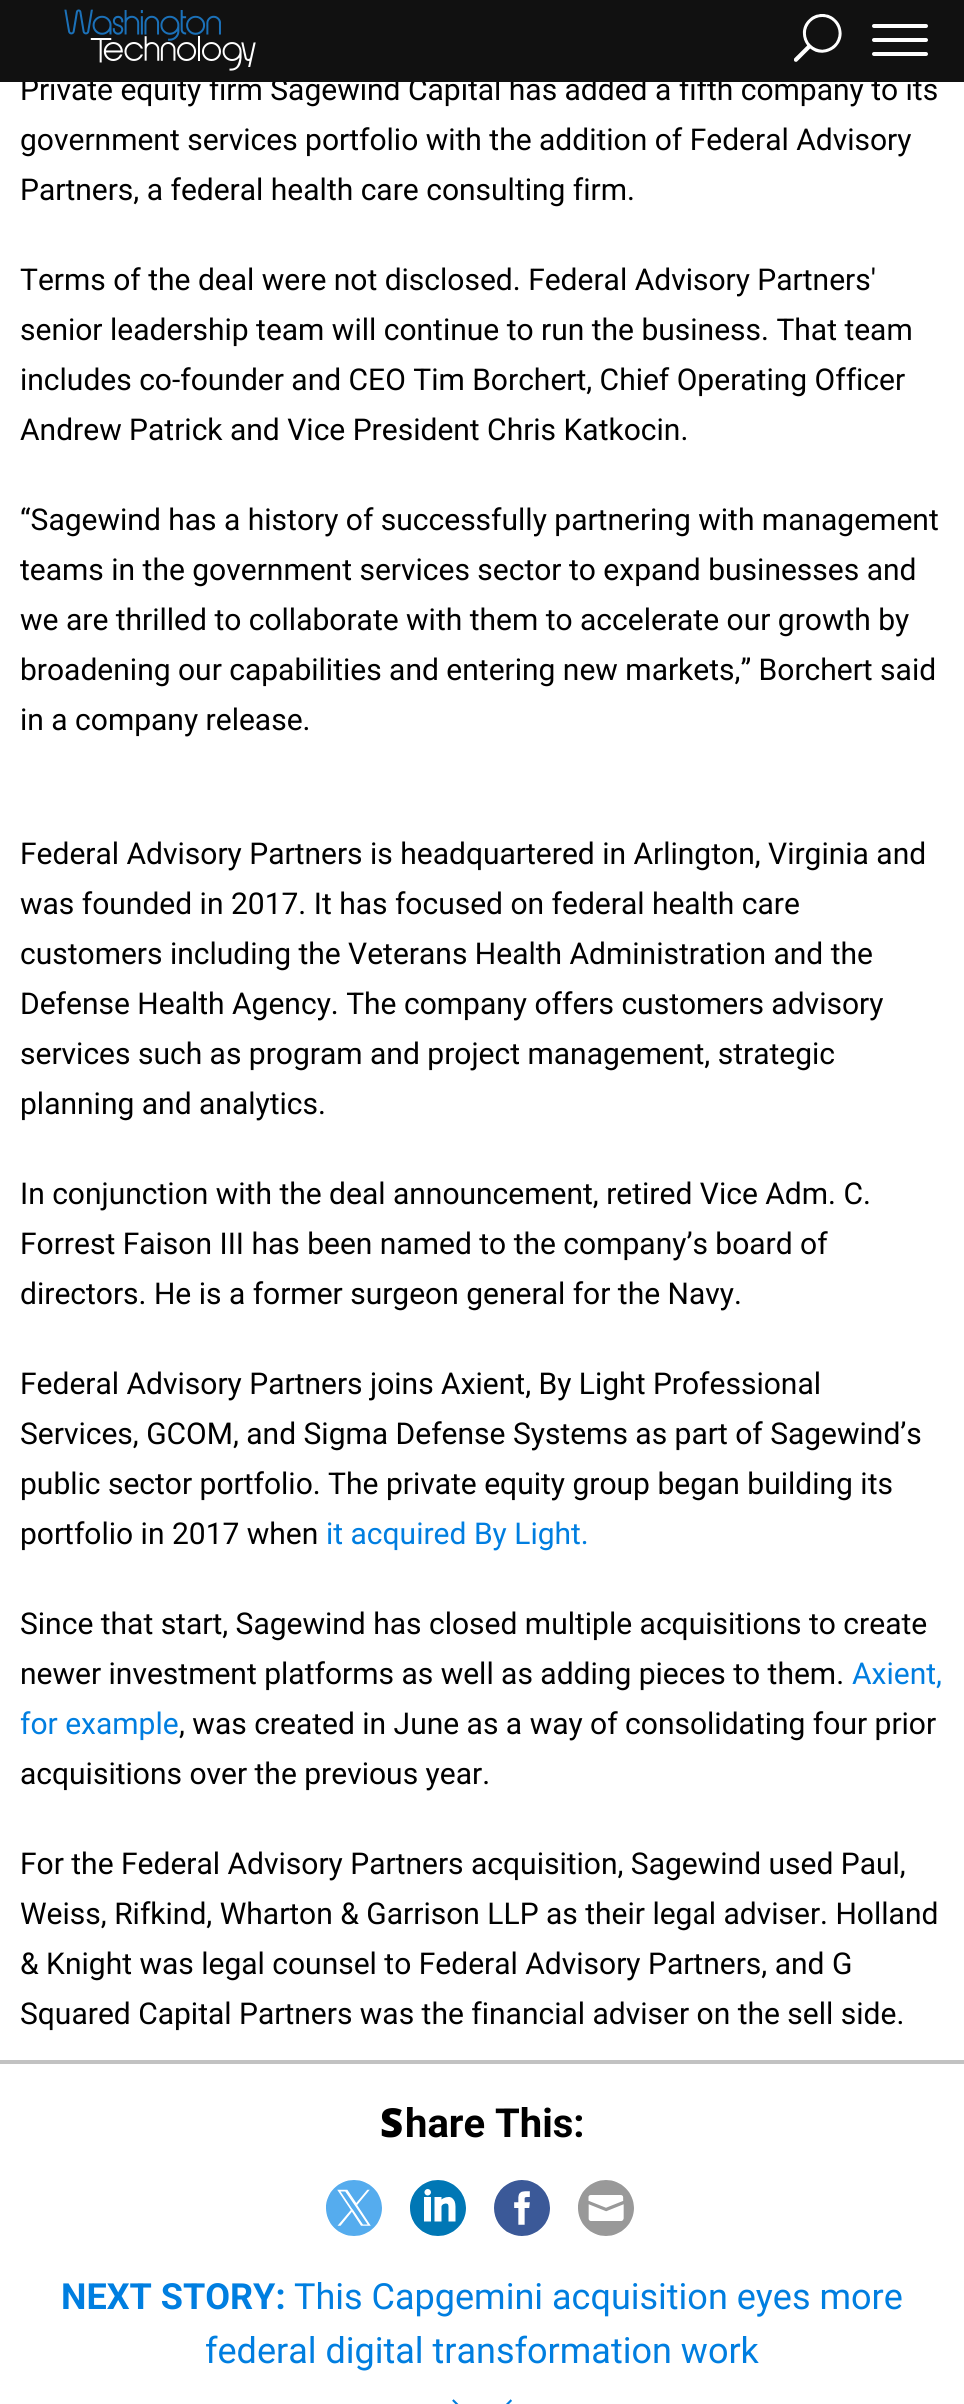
#include <cairo.h>
#include <math.h>
#include <stddef.h>


static void rgb(cairo_t *cr, int r, int g, int b)
{
	cairo_set_source_rgb(cr, r / 255.0, g / 255.0, b / 255.0);
}

static void face(cairo_t *cr, const char *family, double size, int italic, int bold)
{
	cairo_select_font_face(cr, family, italic ? CAIRO_FONT_SLANT_ITALIC : CAIRO_FONT_SLANT_NORMAL,
		bold ? CAIRO_FONT_WEIGHT_BOLD : CAIRO_FONT_WEIGHT_NORMAL);
	cairo_set_font_size(cr, size);
}

static void label(cairo_t *cr, double x, double y, const char *s)
{
	cairo_move_to(cr, x, y);
	cairo_show_text(cr, s);
}

static void rect(cairo_t *cr, double x, double y, double w, double h)
{
	cairo_rectangle(cr, x, y, w, h);
	cairo_fill(cr);
}

static void rrect(cairo_t *cr, double x, double y, double w, double h, double r)
{
	cairo_new_sub_path(cr);
	cairo_arc(cr, x + w - r, y + h - r, r, 0, M_PI / 2);
	cairo_arc(cr, x + r, y + h - r, r, M_PI / 2, M_PI);
	cairo_arc(cr, x + r, y + r, r, M_PI, 1.5 * M_PI);
	cairo_arc(cr, x + w - r, y + r, r, 1.5 * M_PI, 2 * M_PI);
	cairo_close_path(cr);
}

static void image(cairo_t *cr, const char *path, double x, double y, double w, double h)
{
	cairo_surface_t *image = cairo_image_surface_create_from_png(path);
	cairo_save(cr);
	cairo_set_source_surface(cr, image, x, y);
	cairo_rectangle(cr, x, y, w, h);
	cairo_fill(cr);
	cairo_restore(cr);
	cairo_surface_destroy(image);
}

static void draw(cairo_t *cr) {
	rgb(cr, 255, 255, 255);
	cairo_paint(cr);
	face(cr, "Roboto", 30, 0, 0);
	rgb(cr, 0, 0, 0);
	label(cr, 20, 100, "Private equity firm Sagewind Capital has added a fifth company to its");
	rgb(cr, 17, 17, 17);
	rect(cr, 0, 0, 964, 82);
	image(cr, "image0.png", 64, 9, 192, 62);
	image(cr, "image1.png", 794, 14, 48, 48);
	rgb(cr, 254, 254, 254);
	rrect(cr, 872, 38, 56, 4, 2);
	cairo_fill(cr);
	rrect(cr, 872, 24, 56, 4, 2);
	cairo_fill(cr);
	rrect(cr, 872, 52, 56, 4, 2);
	cairo_fill(cr);
	rgb(cr, 0, 0, 0);
	label(cr, 20, 150, "government services portfolio with the addition of Federal Advisory");
	label(cr, 20, 200, "Partners, a federal health care consulting firm.");
	label(cr, 20, 290, "Terms of the deal were not disclosed. Federal Advisory Partners'");
	label(cr, 20, 340, "senior leadership team will continue to run the business. That team");
	label(cr, 20, 390, "includes co-founder and CEO Tim Borchert, Chief Operating Officer");
	label(cr, 20, 440, "Andrew Patrick and Vice President Chris Katkocin.");
	label(cr, 20, 530, "“Sagewind has a history of successfully partnering with management");
	label(cr, 20, 580, "teams in the government services sector to expand businesses and");
	label(cr, 20, 630, "we are thrilled to collaborate with them to accelerate our growth by");
	label(cr, 20, 680, "broadening our capabilities and entering new markets,” Borchert said");
	label(cr, 20, 730, "in a company release.");
	label(cr, 20, 864, "Federal Advisory Partners is headquartered in Arlington, Virginia and");
	label(cr, 20, 914, "was founded in 2017. It has focused on federal health care");
	label(cr, 20, 964, "customers including the Veterans Health Administration and the");
	label(cr, 20, 1014, "Defense Health Agency. The company offers customers advisory");
	label(cr, 20, 1064, "services such as program and project management, strategic");
	label(cr, 20, 1114, "planning and analytics.");
	label(cr, 20, 1204, "In conjunction with the deal announcement, retired Vice Adm. C.");
	label(cr, 20, 1254, "Forrest Faison III has been named to the company’s board of");
	label(cr, 20, 1304, "directors. He is a former surgeon general for the Navy.");
	label(cr, 20, 1394, "Federal Advisory Partners joins Axient, By Light Professional");
	label(cr, 20, 1444, "Services, GCOM, and Sigma Defense Systems as part of Sagewind’s");
	label(cr, 20, 1494, "public sector portfolio. The private equity group began building its");
	label(cr, 20, 1544, "portfolio in 2017 when");
	rgb(cr, 0, 126, 224);
	label(cr, 326, 1544, "it acquired By Light.");
	rgb(cr, 0, 0, 0);
	label(cr, 20, 1634, "Since that start, Sagewind has closed multiple acquisitions to create");
	label(cr, 20, 1684, "newer investment platforms as well as adding pieces to them.");
	rgb(cr, 0, 126, 224);
	label(cr, 852, 1684, "Axient,");
	label(cr, 20, 1734, "for example");
	rgb(cr, 0, 0, 0);
	label(cr, 179, 1734, ", was created in June as a way of consolidating four prior");
	label(cr, 20, 1784, "acquisitions over the previous year.");
	label(cr, 20, 1874, "For the Federal Advisory Partners acquisition, Sagewind used Paul,");
	label(cr, 20, 1924, "Weiss, Rifkind, Wharton & Garrison LLP as their legal adviser. Holland");
	label(cr, 20, 1974, "& Knight was legal counsel to Federal Advisory Partners, and G");
	label(cr, 20, 2024, "Squared Capital Partners was the financial adviser on the sell side.");
	rgb(cr, 194, 194, 194);
	rect(cr, 0, 2060, 964, 4);
	face(cr, "Noto Sans Black", 40, 0, 0);
	rgb(cr, 0, 0, 0);
	label(cr, 380, 2137, "S");
	face(cr, "Roboto", 40, 0, 1);
	label(cr, 405, 2137, "hare This:");
	image(cr, "image2.png", 326, 2180, 56, 56);
	image(cr, "image3.png", 410, 2180, 56, 56);
	image(cr, "image4.png", 494, 2180, 56, 56);
	image(cr, "image5.png", 578, 2180, 56, 56);
	face(cr, "Roboto", 36, 0, 1);
	rgb(cr, 0, 126, 224);
	label(cr, 61, 2309, "NEXT STORY:");
	face(cr, "Roboto", 36, 0, 0);
	label(cr, 294, 2309, "This Capgemini acquisition eyes more");
	label(cr, 205, 2363, "federal digital transformation work");
	image(cr, "image6.png", 452, 2399, 60, 5);
}

int main(void) {
	cairo_surface_t *surface = cairo_image_surface_create(CAIRO_FORMAT_RGB24, 964, 2404);
	cairo_t *cr = cairo_create(surface);
	cairo_font_options_t *options = cairo_font_options_create();
	cairo_font_options_set_hint_metrics(options, CAIRO_HINT_METRICS_OFF);
	cairo_font_options_set_hint_style(options, CAIRO_HINT_STYLE_NONE);
	cairo_set_font_options(cr, options);
	cairo_set_miter_limit(cr, 4);
	draw(cr);
	cairo_surface_write_to_png(surface, "render.png");
	cairo_font_options_destroy(options);
	cairo_destroy(cr);
	cairo_surface_destroy(surface);
	return 0;
}
